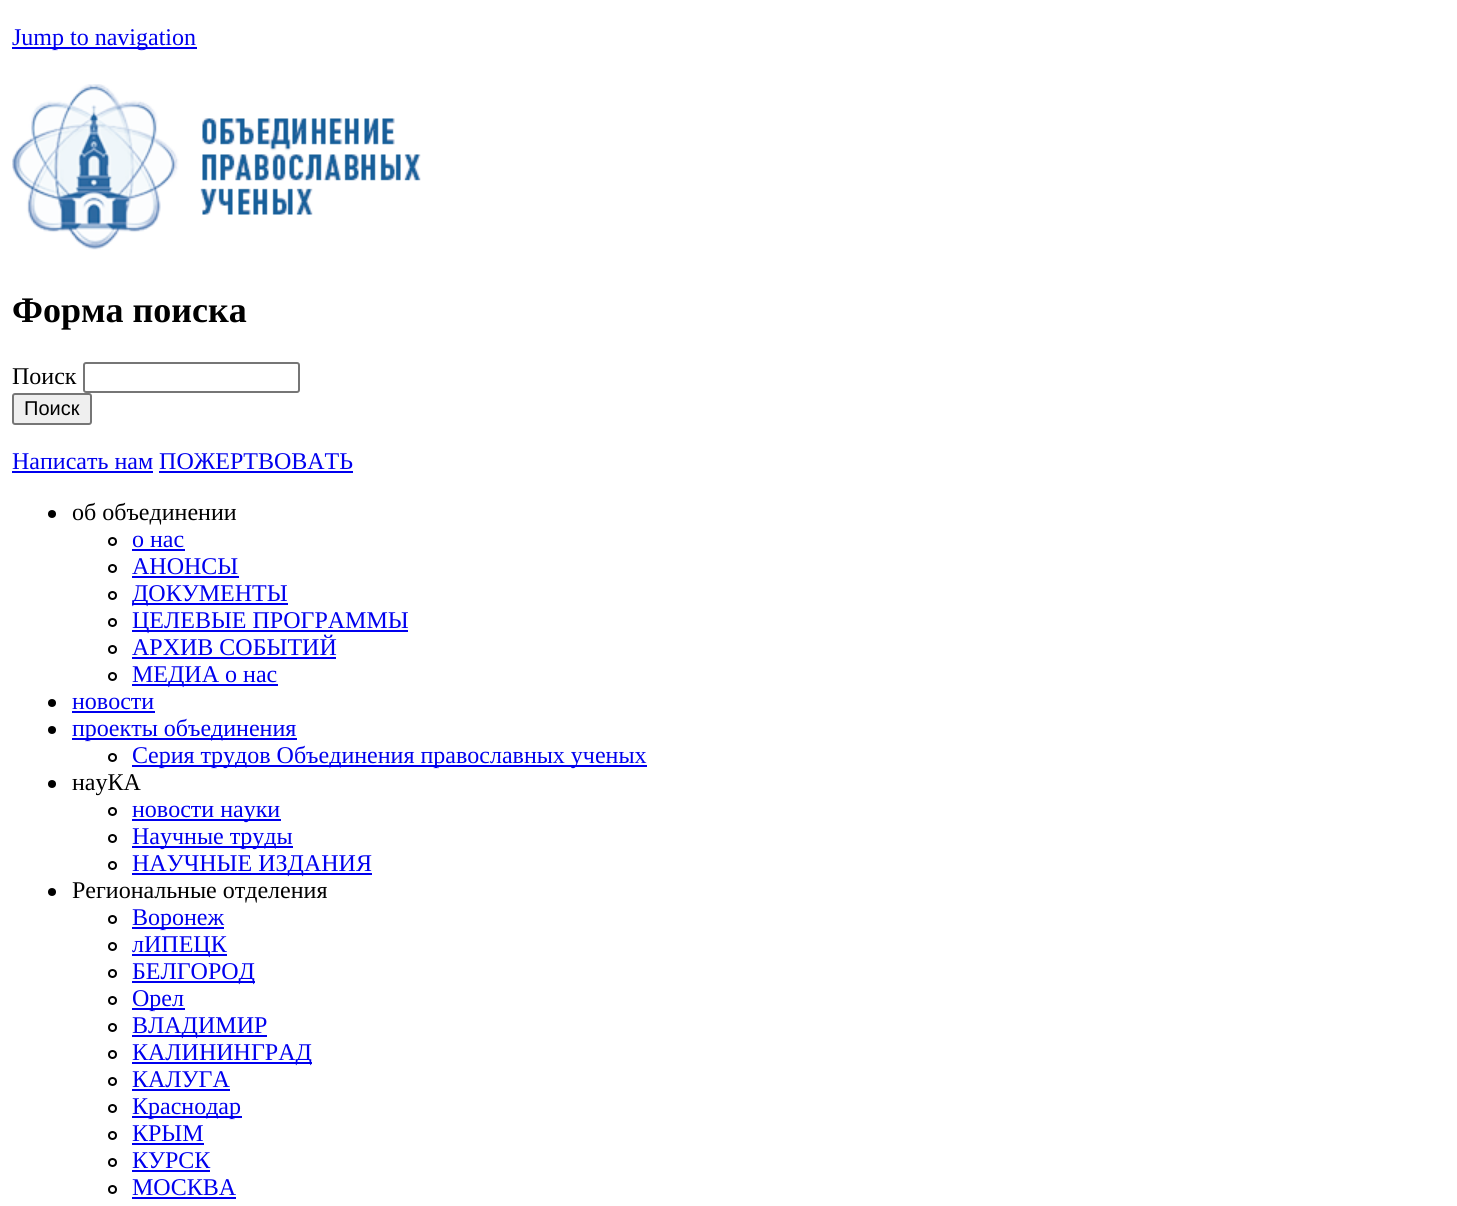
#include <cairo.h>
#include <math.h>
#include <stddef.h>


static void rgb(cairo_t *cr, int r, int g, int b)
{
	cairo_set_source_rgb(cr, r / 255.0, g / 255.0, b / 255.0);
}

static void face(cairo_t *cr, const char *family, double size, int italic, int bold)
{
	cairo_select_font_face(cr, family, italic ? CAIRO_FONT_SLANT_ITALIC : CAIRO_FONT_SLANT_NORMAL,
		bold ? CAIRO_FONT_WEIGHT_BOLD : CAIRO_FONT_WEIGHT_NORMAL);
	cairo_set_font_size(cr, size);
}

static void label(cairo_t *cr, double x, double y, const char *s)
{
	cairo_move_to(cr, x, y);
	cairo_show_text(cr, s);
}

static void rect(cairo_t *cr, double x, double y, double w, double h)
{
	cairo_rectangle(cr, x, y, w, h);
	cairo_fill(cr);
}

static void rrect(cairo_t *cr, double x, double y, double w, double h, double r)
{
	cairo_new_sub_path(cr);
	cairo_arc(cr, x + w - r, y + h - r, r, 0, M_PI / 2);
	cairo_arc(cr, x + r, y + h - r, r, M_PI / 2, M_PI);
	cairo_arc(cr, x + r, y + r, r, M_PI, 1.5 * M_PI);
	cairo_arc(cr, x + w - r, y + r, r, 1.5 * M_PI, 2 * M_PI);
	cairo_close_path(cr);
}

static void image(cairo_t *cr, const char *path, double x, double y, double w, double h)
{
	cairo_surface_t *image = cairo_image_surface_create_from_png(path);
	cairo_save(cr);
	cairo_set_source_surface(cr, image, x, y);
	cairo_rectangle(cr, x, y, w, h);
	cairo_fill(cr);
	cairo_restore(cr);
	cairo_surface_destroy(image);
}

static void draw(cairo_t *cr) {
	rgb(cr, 255, 255, 255);
	cairo_paint(cr);
	rgb(cr, 0, 0, 238);
	rect(cr, 12, 47, 185, 2);
	face(cr, "Liberation Serif", 24, 0, 0);
	label(cr, 12, 45, "Jump to navigation");
	image(cr, "image0.png", 12, 84, 409, 166);
	face(cr, "Liberation Serif", 36, 0, 1);
	rgb(cr, 0, 0, 0);
	label(cr, 12, 322, "Форма поиска");
	face(cr, "Liberation Serif", 24, 0, 0);
	label(cr, 12, 384, "Поиск");
	rrect(cr, 84, 363, 215, 29, 2);
	rgb(cr, 118, 118, 118);
	cairo_stroke(cr);
	rgb(cr, 239, 239, 239);
	rrect(cr, 13, 394, 78, 30, 2);
	cairo_fill_preserve(cr);
	rgb(cr, 118, 118, 118);
	cairo_stroke(cr);
	face(cr, "Liberation Sans", 20, 0, 0);
	rgb(cr, 0, 0, 0);
	label(cr, 24, 415, "Поиск");
	face(cr, "Liberation Serif", 24, 0, 0);
	rgb(cr, 0, 0, 238);
	label(cr, 12, 469, "Написать нам ПОЖЕРТВОВАТЬ");
	rect(cr, 12, 471, 141, 2);
	rect(cr, 159, 471, 194, 2);
	rgb(cr, 0, 0, 0);
	cairo_new_path(cr);
	cairo_arc(cr, 52, 514, 4, 0, 2 * M_PI);
	cairo_fill(cr);
	label(cr, 72, 520, "об объединении");
	cairo_new_path(cr);
	cairo_arc(cr, 112.5, 541.5, 3.5, 0, 2 * M_PI);
	cairo_stroke(cr);
	rgb(cr, 0, 0, 238);
	label(cr, 132, 547, "о нас");
	rect(cr, 132, 549, 53, 2);
	cairo_new_path(cr);
	cairo_arc(cr, 112.5, 568.5, 3.5, 0, 2 * M_PI);
	rgb(cr, 0, 0, 0);
	cairo_stroke(cr);
	rgb(cr, 0, 0, 238);
	label(cr, 132, 574, "АНОНСЫ");
	rect(cr, 132, 576, 107, 2);
	cairo_new_path(cr);
	cairo_arc(cr, 112.5, 595.5, 3.5, 0, 2 * M_PI);
	rgb(cr, 0, 0, 0);
	cairo_stroke(cr);
	rgb(cr, 0, 0, 238);
	rect(cr, 132, 603, 156, 2);
	label(cr, 132, 601, "ДОКУМЕНТЫ");
	cairo_new_path(cr);
	cairo_arc(cr, 112.5, 622.5, 3.5, 0, 2 * M_PI);
	rgb(cr, 0, 0, 0);
	cairo_stroke(cr);
	rgb(cr, 0, 0, 238);
	rect(cr, 132, 630, 276, 2);
	label(cr, 132, 628, "ЦЕЛЕВЫЕ ПРОГРАММЫ");
	cairo_new_path(cr);
	cairo_arc(cr, 112.5, 649.5, 3.5, 0, 2 * M_PI);
	rgb(cr, 0, 0, 0);
	cairo_stroke(cr);
	rgb(cr, 0, 0, 238);
	label(cr, 132, 655, "АРХИВ СОБЫТИЙ");
	rect(cr, 132, 657, 204, 2);
	cairo_new_path(cr);
	cairo_arc(cr, 112.5, 676.5, 3.5, 0, 2 * M_PI);
	rgb(cr, 0, 0, 0);
	cairo_stroke(cr);
	rgb(cr, 0, 0, 238);
	rect(cr, 132, 684, 146, 2);
	label(cr, 132, 682, "МЕДИА о нас");
	rgb(cr, 0, 0, 0);
	cairo_new_path(cr);
	cairo_arc(cr, 52, 703, 4, 0, 2 * M_PI);
	cairo_fill(cr);
	rgb(cr, 0, 0, 238);
	label(cr, 72, 709, "новости");
	rect(cr, 72, 711, 83, 2);
	rgb(cr, 0, 0, 0);
	cairo_new_path(cr);
	cairo_arc(cr, 52, 730, 4, 0, 2 * M_PI);
	cairo_fill(cr);
	rgb(cr, 0, 0, 238);
	rect(cr, 72, 738, 225, 2);
	label(cr, 72, 736, "проекты объединения");
	cairo_new_path(cr);
	cairo_arc(cr, 112.5, 757.5, 3.5, 0, 2 * M_PI);
	rgb(cr, 0, 0, 0);
	cairo_stroke(cr);
	rgb(cr, 0, 0, 238);
	rect(cr, 132, 765, 515, 2);
	label(cr, 132, 763, "Серия трудов Объединения православных ученых");
	rgb(cr, 0, 0, 0);
	cairo_new_path(cr);
	cairo_arc(cr, 52, 784, 4, 0, 2 * M_PI);
	cairo_fill(cr);
	label(cr, 72, 790, "науКА");
	cairo_new_path(cr);
	cairo_arc(cr, 112.5, 811.5, 3.5, 0, 2 * M_PI);
	cairo_stroke(cr);
	rgb(cr, 0, 0, 238);
	rect(cr, 132, 819, 149, 2);
	label(cr, 132, 817, "новости науки");
	cairo_new_path(cr);
	cairo_arc(cr, 112.5, 838.5, 3.5, 0, 2 * M_PI);
	rgb(cr, 0, 0, 0);
	cairo_stroke(cr);
	rgb(cr, 0, 0, 238);
	rect(cr, 132, 846, 161, 2);
	label(cr, 132, 844, "Научные труды");
	cairo_new_path(cr);
	cairo_arc(cr, 112.5, 865.5, 3.5, 0, 2 * M_PI);
	rgb(cr, 0, 0, 0);
	cairo_stroke(cr);
	rgb(cr, 0, 0, 238);
	rect(cr, 132, 873, 240, 2);
	label(cr, 132, 871, "НАУЧНЫЕ ИЗДАНИЯ");
	rgb(cr, 0, 0, 0);
	cairo_new_path(cr);
	cairo_arc(cr, 52, 892, 4, 0, 2 * M_PI);
	cairo_fill(cr);
	label(cr, 72, 898, "Региональные отделения");
	cairo_new_path(cr);
	cairo_arc(cr, 112.5, 919.5, 3.5, 0, 2 * M_PI);
	cairo_stroke(cr);
	rgb(cr, 0, 0, 238);
	rect(cr, 132, 927, 92, 2);
	label(cr, 132, 925, "Воронеж");
	cairo_new_path(cr);
	cairo_arc(cr, 112.5, 946.5, 3.5, 0, 2 * M_PI);
	rgb(cr, 0, 0, 0);
	cairo_stroke(cr);
	rgb(cr, 0, 0, 238);
	rect(cr, 132, 954, 95, 2);
	label(cr, 132, 952, "лИПЕЦК");
	cairo_new_path(cr);
	cairo_arc(cr, 112.5, 973.5, 3.5, 0, 2 * M_PI);
	rgb(cr, 0, 0, 0);
	cairo_stroke(cr);
	rgb(cr, 0, 0, 238);
	rect(cr, 132, 981, 123, 2);
	label(cr, 132, 979, "БЕЛГОРОД");
	cairo_new_path(cr);
	cairo_arc(cr, 112.5, 1000.5, 3.5, 0, 2 * M_PI);
	rgb(cr, 0, 0, 0);
	cairo_stroke(cr);
	rgb(cr, 0, 0, 238);
	rect(cr, 132, 1008, 53, 2);
	label(cr, 132, 1006, "Орел");
	cairo_new_path(cr);
	cairo_arc(cr, 112.5, 1027.5, 3.5, 0, 2 * M_PI);
	rgb(cr, 0, 0, 0);
	cairo_stroke(cr);
	rgb(cr, 0, 0, 238);
	rect(cr, 132, 1035, 135, 2);
	label(cr, 132, 1033, "ВЛАДИМИР");
	cairo_new_path(cr);
	cairo_arc(cr, 112.5, 1054.5, 3.5, 0, 2 * M_PI);
	rgb(cr, 0, 0, 0);
	cairo_stroke(cr);
	rgb(cr, 0, 0, 238);
	rect(cr, 132, 1062, 180, 2);
	label(cr, 132, 1060, "КАЛИНИНГРАД");
	cairo_new_path(cr);
	cairo_arc(cr, 112.5, 1081.5, 3.5, 0, 2 * M_PI);
	rgb(cr, 0, 0, 0);
	cairo_stroke(cr);
	rgb(cr, 0, 0, 238);
	label(cr, 132, 1087, "КАЛУГА");
	rect(cr, 132, 1089, 98, 2);
	cairo_new_path(cr);
	cairo_arc(cr, 112.5, 1108.5, 3.5, 0, 2 * M_PI);
	rgb(cr, 0, 0, 0);
	cairo_stroke(cr);
	rgb(cr, 0, 0, 238);
	rect(cr, 132, 1116, 110, 2);
	label(cr, 132, 1114, "Краснодар");
	cairo_new_path(cr);
	cairo_arc(cr, 112.5, 1135.5, 3.5, 0, 2 * M_PI);
	rgb(cr, 0, 0, 0);
	cairo_stroke(cr);
	rgb(cr, 0, 0, 238);
	label(cr, 132, 1141, "КРЫМ");
	rect(cr, 132, 1143, 72, 2);
	cairo_new_path(cr);
	cairo_arc(cr, 112.5, 1162.5, 3.5, 0, 2 * M_PI);
	rgb(cr, 0, 0, 0);
	cairo_stroke(cr);
	rgb(cr, 0, 0, 238);
	label(cr, 132, 1168, "КУРСК");
	rect(cr, 132, 1170, 78, 2);
	cairo_new_path(cr);
	cairo_arc(cr, 112.5, 1189.5, 3.5, 0, 2 * M_PI);
	rgb(cr, 0, 0, 0);
	cairo_stroke(cr);
	rgb(cr, 0, 0, 238);
	label(cr, 132, 1195, "МОСКВА");
	rect(cr, 132, 1197, 104, 2);
}

int main(void) {
	cairo_surface_t *surface = cairo_image_surface_create(CAIRO_FORMAT_RGB24, 1457, 1206);
	cairo_t *cr = cairo_create(surface);
	cairo_font_options_t *options = cairo_font_options_create();
	cairo_font_options_set_hint_metrics(options, CAIRO_HINT_METRICS_OFF);
	cairo_font_options_set_hint_style(options, CAIRO_HINT_STYLE_NONE);
	cairo_set_font_options(cr, options);
	cairo_set_miter_limit(cr, 4);
	draw(cr);
	cairo_surface_write_to_png(surface, "render.png");
	cairo_font_options_destroy(options);
	cairo_destroy(cr);
	cairo_surface_destroy(surface);
	return 0;
}
